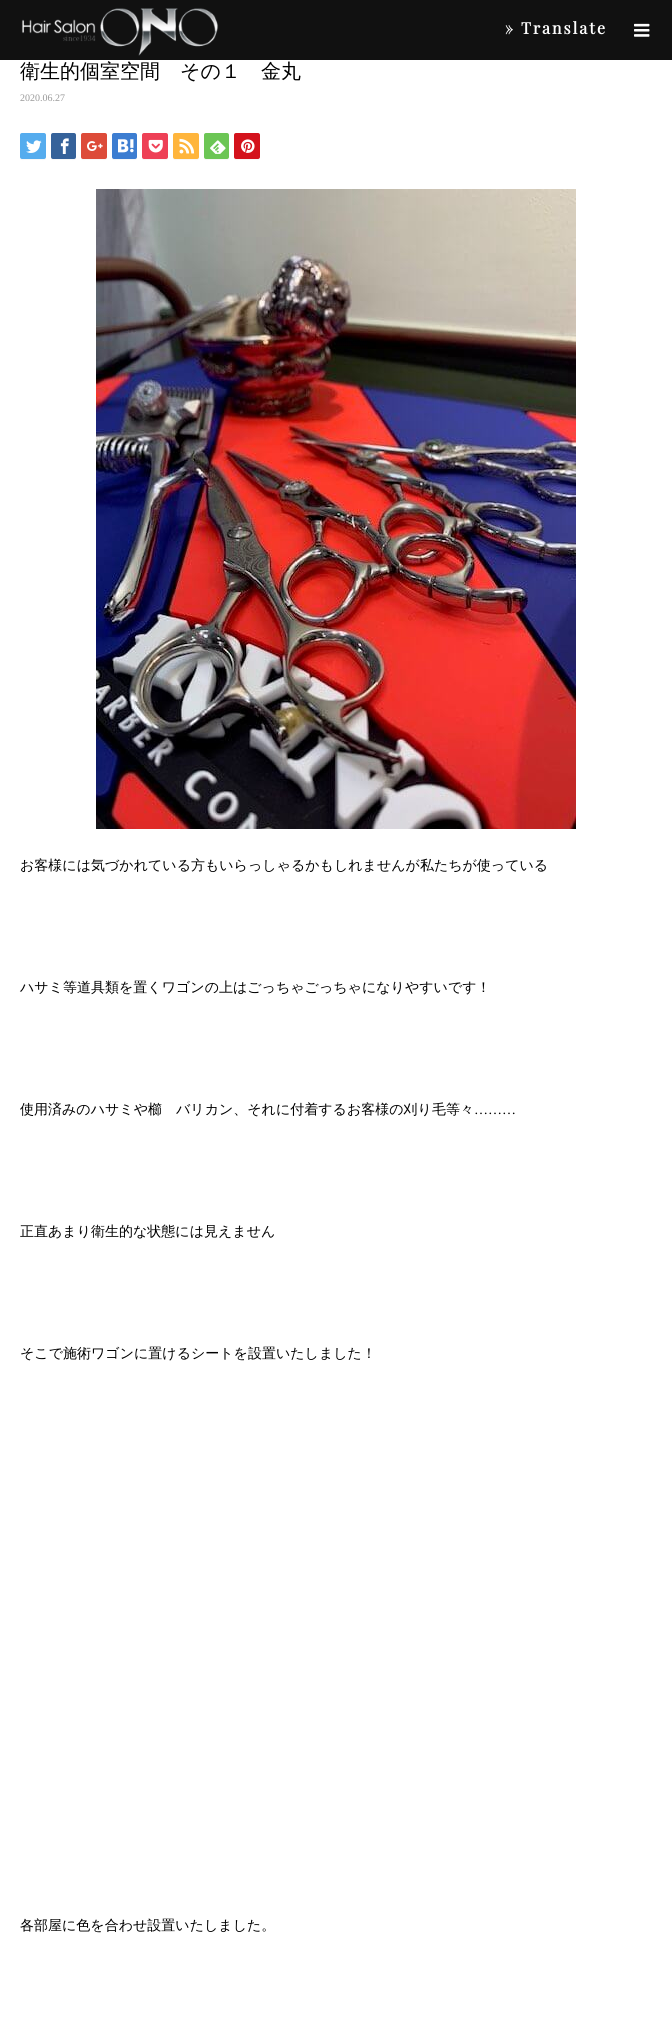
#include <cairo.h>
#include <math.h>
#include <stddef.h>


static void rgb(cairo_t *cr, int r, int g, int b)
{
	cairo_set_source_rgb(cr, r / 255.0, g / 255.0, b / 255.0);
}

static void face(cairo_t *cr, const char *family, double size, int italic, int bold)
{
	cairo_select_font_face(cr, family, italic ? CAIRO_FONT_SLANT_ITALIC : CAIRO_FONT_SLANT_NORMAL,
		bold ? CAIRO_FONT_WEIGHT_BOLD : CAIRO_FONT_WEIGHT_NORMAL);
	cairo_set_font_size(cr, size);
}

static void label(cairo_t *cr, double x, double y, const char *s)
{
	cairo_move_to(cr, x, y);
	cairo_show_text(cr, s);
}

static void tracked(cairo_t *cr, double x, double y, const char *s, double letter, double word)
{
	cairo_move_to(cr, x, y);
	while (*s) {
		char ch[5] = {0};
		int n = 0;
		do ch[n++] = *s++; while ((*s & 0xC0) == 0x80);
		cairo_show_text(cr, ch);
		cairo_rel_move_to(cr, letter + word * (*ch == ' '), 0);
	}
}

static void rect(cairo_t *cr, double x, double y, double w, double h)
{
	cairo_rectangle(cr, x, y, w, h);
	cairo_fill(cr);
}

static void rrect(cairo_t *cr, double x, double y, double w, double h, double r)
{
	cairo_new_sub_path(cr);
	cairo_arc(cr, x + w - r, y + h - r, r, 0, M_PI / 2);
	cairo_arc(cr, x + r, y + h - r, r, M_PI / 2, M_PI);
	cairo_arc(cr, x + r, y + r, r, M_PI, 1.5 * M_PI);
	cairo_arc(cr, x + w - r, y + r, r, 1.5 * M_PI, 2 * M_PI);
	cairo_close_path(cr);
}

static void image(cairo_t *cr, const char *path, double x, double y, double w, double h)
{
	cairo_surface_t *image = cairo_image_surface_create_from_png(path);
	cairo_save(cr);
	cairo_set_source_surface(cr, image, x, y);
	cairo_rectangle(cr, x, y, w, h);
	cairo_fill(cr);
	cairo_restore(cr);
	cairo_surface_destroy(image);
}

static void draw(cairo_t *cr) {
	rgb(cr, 255, 255, 255);
	cairo_paint(cr);
	rgb(cr, 17, 17, 17);
	rect(cr, 0, 0, 672, 60);
	image(cr, "image0.png", 21, 8, 198, 48);
	image(cr, "image1.png", 634, 23, 16, 14);
	face(cr, "Playfair Display", 16, 0, 1);
	rgb(cr, 255, 255, 255);
	tracked(cr, 505, 34, "» Translate", 2, 0);
	face(cr, "WenQuanYi Zen Hei Medium", 20, 0, 0);
	rgb(cr, 0, 0, 0);
	label(cr, 20, 78, "衛生的個室空間　その１　金丸");
	face(cr, "Liberation Serif", 10, 0, 0);
	rgb(cr, 153, 153, 153);
	label(cr, 20, 101, "2020.06.27");
	rgb(cr, 247, 247, 247);
	cairo_new_path(cr);
	cairo_move_to(cr, 20, 157);
	cairo_curve_to(cr, 20, 161, 22, 160, 25.5, 160);
	cairo_line_to(cr, 40.5, 160);
	cairo_curve_to(cr, 44, 160, 46, 161, 46, 157);
	cairo_curve_to(cr, 46, 158, 45, 159, 44, 159);
	cairo_line_to(cr, 22, 159);
	cairo_curve_to(cr, 21, 159, 20, 158, 20, 157);
	cairo_close_path(cr);
	cairo_fill(cr);
	rgb(cr, 85, 172, 238);
	rrect(cr, 20, 133, 26, 26, 2);
	cairo_fill(cr);
	image(cr, "image2.png", 26, 140, 16, 13);
	rgb(cr, 247, 247, 247);
	cairo_new_path(cr);
	cairo_move_to(cr, 51, 157);
	cairo_curve_to(cr, 51, 161, 53, 160, 56.5, 160);
	cairo_line_to(cr, 70.5, 160);
	cairo_curve_to(cr, 74, 160, 76, 161, 76, 157);
	cairo_curve_to(cr, 76, 158, 75, 159, 74, 159);
	cairo_line_to(cr, 53, 159);
	cairo_curve_to(cr, 52, 159, 51, 158, 51, 157);
	cairo_close_path(cr);
	cairo_fill(cr);
	rgb(cr, 53, 98, 154);
	rrect(cr, 51, 133, 25, 26, 2);
	cairo_fill(cr);
	image(cr, "image3.png", 60, 138, 9, 16);
	rgb(cr, 247, 247, 247);
	cairo_new_path(cr);
	cairo_move_to(cr, 81, 157);
	cairo_curve_to(cr, 81, 161, 83, 160, 86.5, 160);
	cairo_line_to(cr, 101.5, 160);
	cairo_curve_to(cr, 105, 160, 107, 161, 107, 157);
	cairo_curve_to(cr, 107, 158, 106, 159, 105, 159);
	cairo_line_to(cr, 83, 159);
	cairo_curve_to(cr, 82, 159, 81, 158, 81, 157);
	cairo_close_path(cr);
	cairo_fill(cr);
	rgb(cr, 221, 75, 57);
	rrect(cr, 81, 133, 26, 26, 2);
	cairo_fill(cr);
	image(cr, "image4.png", 87, 141, 16, 10);
	rgb(cr, 247, 247, 247);
	cairo_new_path(cr);
	cairo_move_to(cr, 112, 157);
	cairo_curve_to(cr, 112, 161, 114, 160, 117.5, 160);
	cairo_line_to(cr, 131.5, 160);
	cairo_curve_to(cr, 135, 160, 137, 161, 137, 157);
	cairo_curve_to(cr, 137, 158, 136, 159, 135, 159);
	cairo_line_to(cr, 114, 159);
	cairo_curve_to(cr, 113, 159, 112, 158, 112, 157);
	cairo_close_path(cr);
	cairo_fill(cr);
	rgb(cr, 60, 125, 209);
	rrect(cr, 112, 133, 25, 26, 2);
	cairo_fill(cr);
	image(cr, "image5.png", 118, 139, 16, 14);
	rgb(cr, 247, 247, 247);
	cairo_new_path(cr);
	cairo_move_to(cr, 142, 157);
	cairo_curve_to(cr, 142, 161, 144, 160, 147.5, 160);
	cairo_line_to(cr, 162.5, 160);
	cairo_curve_to(cr, 166, 160, 168, 161, 168, 157);
	cairo_curve_to(cr, 168, 158, 167, 159, 166, 159);
	cairo_line_to(cr, 144, 159);
	cairo_curve_to(cr, 143, 159, 142, 158, 142, 157);
	cairo_close_path(cr);
	cairo_fill(cr);
	rgb(cr, 238, 64, 86);
	rrect(cr, 142, 133, 26, 26, 2);
	cairo_fill(cr);
	image(cr, "image6.png", 148, 139, 15, 14);
	rgb(cr, 247, 247, 247);
	cairo_new_path(cr);
	cairo_move_to(cr, 173, 157);
	cairo_curve_to(cr, 173, 161, 175, 160, 178.5, 160);
	cairo_line_to(cr, 193.5, 160);
	cairo_curve_to(cr, 197, 160, 199, 161, 199, 157);
	cairo_curve_to(cr, 199, 158, 198, 159, 197, 159);
	cairo_line_to(cr, 175, 159);
	cairo_curve_to(cr, 174, 159, 173, 158, 173, 157);
	cairo_close_path(cr);
	cairo_fill(cr);
	rgb(cr, 255, 181, 60);
	rrect(cr, 173, 133, 26, 26, 2);
	cairo_fill(cr);
	image(cr, "image7.png", 179, 138, 16, 16);
	rgb(cr, 247, 247, 247);
	cairo_new_path(cr);
	cairo_move_to(cr, 204, 157);
	cairo_curve_to(cr, 204, 161, 206, 160, 209.5, 160);
	cairo_line_to(cr, 223.5, 160);
	cairo_curve_to(cr, 227, 160, 229, 161, 229, 157);
	cairo_curve_to(cr, 229, 158, 228, 159, 227, 159);
	cairo_line_to(cr, 206, 159);
	cairo_curve_to(cr, 205, 159, 204, 158, 204, 157);
	cairo_close_path(cr);
	cairo_fill(cr);
	rgb(cr, 108, 198, 85);
	rrect(cr, 204, 133, 25, 26, 2);
	cairo_fill(cr);
	image(cr, "image8.png", 210, 140, 16, 14);
	rgb(cr, 247, 247, 247);
	cairo_new_path(cr);
	cairo_move_to(cr, 234, 157);
	cairo_curve_to(cr, 234, 161, 236, 160, 239.5, 160);
	cairo_line_to(cr, 254.5, 160);
	cairo_curve_to(cr, 258, 160, 260, 161, 260, 157);
	cairo_curve_to(cr, 260, 158, 259, 159, 258, 159);
	cairo_line_to(cr, 236, 159);
	cairo_curve_to(cr, 235, 159, 234, 158, 234, 157);
	cairo_close_path(cr);
	cairo_fill(cr);
	rgb(cr, 212, 18, 28);
	rrect(cr, 234, 133, 26, 26, 2);
	cairo_fill(cr);
	image(cr, "image9.png", 241, 139, 14, 14);
	image(cr, "image10.png", 96, 189, 480, 640);
	face(cr, "WenQuanYi Zen Hei Medium", 14, 0, 0);
	rgb(cr, 0, 0, 0);
	label(cr, 20, 870, "お客様には気づかれている方もいらっしゃるかもしれませんが私たちが使っている");
	label(cr, 20, 992, "ハサミ等道具類を置くワゴンの上はごっちゃごっちゃになりやすいです！");
	label(cr, 20, 1114, "使用済みのハサミや櫛　バリカン、それに付着するお客様の刈り毛等々");
	face(cr, "Liberation Serif", 14, 0, 0);
	label(cr, 474, 1114, "………");
	face(cr, "WenQuanYi Zen Hei Medium", 14, 0, 0);
	label(cr, 20, 1236, "正直あまり衛生的な状態には見えません");
	label(cr, 20, 1358, "そこで施術ワゴンに置けるシートを設置いたしました！");
	label(cr, 20, 1930, "各部屋に色を合わせ設置いたしました。");
}

int main(void) {
	cairo_surface_t *surface = cairo_image_surface_create(CAIRO_FORMAT_RGB24, 672, 2038);
	cairo_t *cr = cairo_create(surface);
	cairo_font_options_t *options = cairo_font_options_create();
	cairo_font_options_set_hint_metrics(options, CAIRO_HINT_METRICS_OFF);
	cairo_font_options_set_hint_style(options, CAIRO_HINT_STYLE_NONE);
	cairo_set_font_options(cr, options);
	cairo_set_miter_limit(cr, 4);
	draw(cr);
	cairo_surface_write_to_png(surface, "render.png");
	cairo_font_options_destroy(options);
	cairo_destroy(cr);
	cairo_surface_destroy(surface);
	return 0;
}
